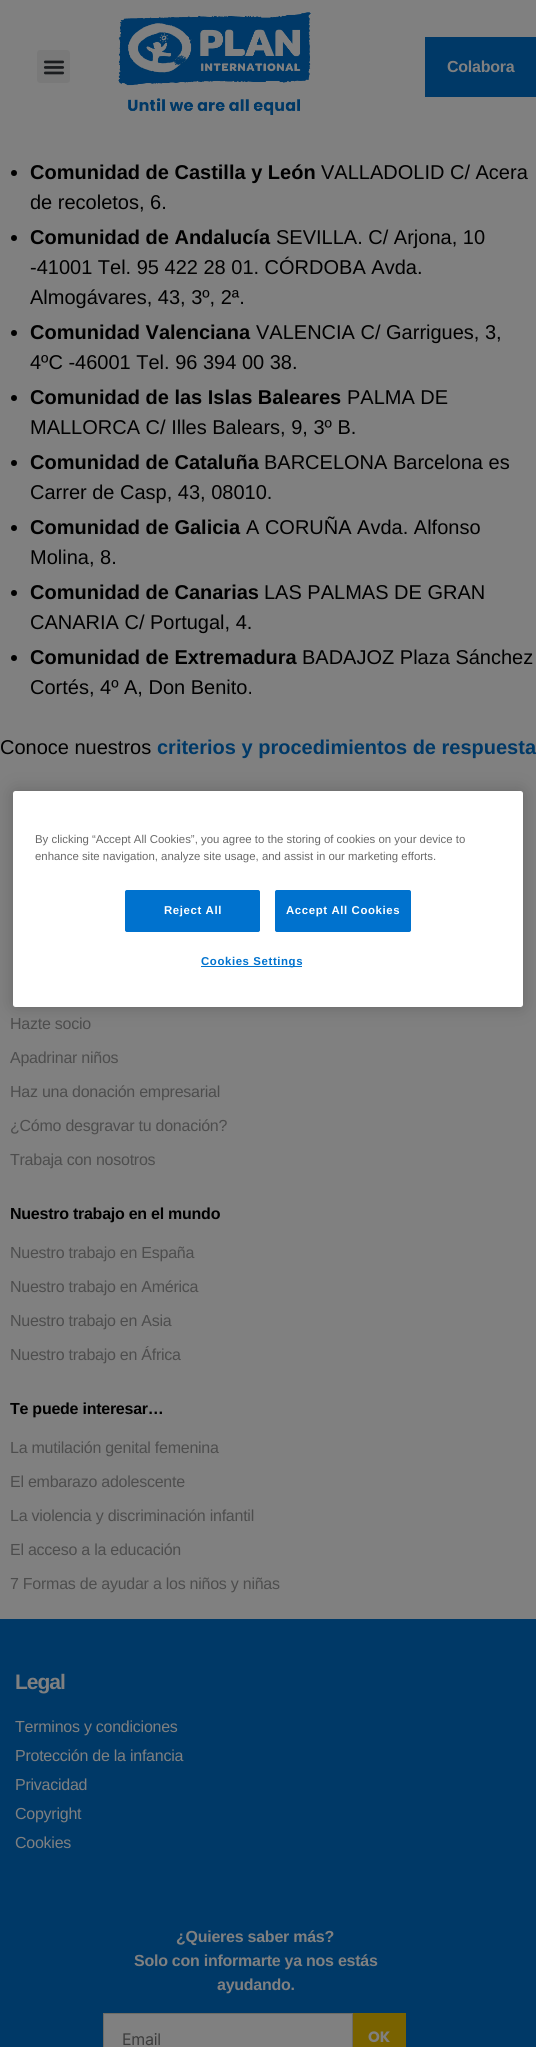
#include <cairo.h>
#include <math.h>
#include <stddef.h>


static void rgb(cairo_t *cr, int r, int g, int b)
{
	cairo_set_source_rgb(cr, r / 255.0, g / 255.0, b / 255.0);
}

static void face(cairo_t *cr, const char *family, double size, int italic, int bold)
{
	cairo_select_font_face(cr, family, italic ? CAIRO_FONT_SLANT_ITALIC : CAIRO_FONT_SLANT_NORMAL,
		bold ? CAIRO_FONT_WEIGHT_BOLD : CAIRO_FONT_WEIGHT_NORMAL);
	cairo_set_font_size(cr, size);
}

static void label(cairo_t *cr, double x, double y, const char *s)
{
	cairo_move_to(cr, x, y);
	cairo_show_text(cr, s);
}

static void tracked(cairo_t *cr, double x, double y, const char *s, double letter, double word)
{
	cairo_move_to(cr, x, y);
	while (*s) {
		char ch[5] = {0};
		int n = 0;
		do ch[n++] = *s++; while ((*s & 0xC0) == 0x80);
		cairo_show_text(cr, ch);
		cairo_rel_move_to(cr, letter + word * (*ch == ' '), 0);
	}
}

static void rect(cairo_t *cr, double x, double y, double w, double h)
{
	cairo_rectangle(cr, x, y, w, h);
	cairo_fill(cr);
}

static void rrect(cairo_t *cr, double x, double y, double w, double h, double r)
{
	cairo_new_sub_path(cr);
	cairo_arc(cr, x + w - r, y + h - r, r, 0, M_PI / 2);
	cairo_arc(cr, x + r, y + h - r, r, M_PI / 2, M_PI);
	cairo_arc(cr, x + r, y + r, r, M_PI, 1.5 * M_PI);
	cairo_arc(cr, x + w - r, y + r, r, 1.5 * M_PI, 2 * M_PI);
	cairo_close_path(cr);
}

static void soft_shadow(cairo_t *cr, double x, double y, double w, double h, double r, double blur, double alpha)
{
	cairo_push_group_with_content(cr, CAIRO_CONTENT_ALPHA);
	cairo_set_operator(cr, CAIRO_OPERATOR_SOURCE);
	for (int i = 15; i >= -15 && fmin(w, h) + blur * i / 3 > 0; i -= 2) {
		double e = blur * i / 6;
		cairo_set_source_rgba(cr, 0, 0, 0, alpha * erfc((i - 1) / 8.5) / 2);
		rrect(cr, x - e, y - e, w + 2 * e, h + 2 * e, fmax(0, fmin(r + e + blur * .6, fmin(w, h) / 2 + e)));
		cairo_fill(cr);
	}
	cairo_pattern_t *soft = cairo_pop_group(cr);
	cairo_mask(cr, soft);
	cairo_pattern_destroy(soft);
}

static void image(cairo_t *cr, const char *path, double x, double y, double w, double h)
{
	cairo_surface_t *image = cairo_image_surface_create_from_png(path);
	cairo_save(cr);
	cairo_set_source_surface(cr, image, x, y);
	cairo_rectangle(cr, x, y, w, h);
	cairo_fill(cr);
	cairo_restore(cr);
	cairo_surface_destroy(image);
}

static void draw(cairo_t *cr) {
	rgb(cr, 128, 128, 128);
	cairo_paint(cr);
	rgb(cr, 121, 121, 121);
	rrect(cr, 37, 50, 33, 33, 3);
	cairo_fill(cr);
	image(cr, "image0.png", 43, 60, 22, 15);
	image(cr, "image1.png", 118, 12, 193, 103);
	rgb(cr, 0, 57, 103);
	rect(cr, 425, 37, 111, 60);
	face(cr, "Liberation Sans", 16, 0, 1);
	rgb(cr, 128, 128, 128);
	tracked(cr, 447, 72, "Colabora", -0.25, 0);
	rgb(cr, 0, 0, 0);
	cairo_new_path(cr);
	cairo_arc(cr, 14, 173, 3, 0, 2 * M_PI);
	cairo_fill(cr);
	face(cr, "Liberation Sans", 20, 0, 1);
	label(cr, 30, 179, "Comunidad de Castilla y León");
	face(cr, "Liberation Sans", 20, 0, 0);
	label(cr, 321, 179, "VALLADOLID C/ Acera");
	label(cr, 30, 209, "de recoletos, 6.");
	cairo_new_path(cr);
	cairo_arc(cr, 14, 238, 3, 0, 2 * M_PI);
	cairo_fill(cr);
	face(cr, "Liberation Sans", 20, 0, 1);
	label(cr, 30, 244, "Comunidad de Andalucía");
	face(cr, "Liberation Sans", 20, 0, 0);
	label(cr, 276, 244, "SEVILLA. C/ Arjona, 10");
	label(cr, 30, 274, "-41001 Tel. 95 422 28 01. CÓRDOBA Avda.");
	label(cr, 30, 304, "Almogávares, 43, 3º, 2ª.");
	cairo_new_path(cr);
	cairo_arc(cr, 14, 333, 3, 0, 2 * M_PI);
	cairo_fill(cr);
	face(cr, "Liberation Sans", 20, 0, 1);
	label(cr, 30, 339, "Comunidad Valenciana");
	face(cr, "Liberation Sans", 20, 0, 0);
	label(cr, 256, 339, "VALENCIA C/ Garrigues, 3,");
	label(cr, 30, 369, "4ºC -46001 Tel. 96 394 00 38.");
	cairo_new_path(cr);
	cairo_arc(cr, 14, 398, 3, 0, 2 * M_PI);
	cairo_fill(cr);
	face(cr, "Liberation Sans", 20, 0, 1);
	label(cr, 30, 404, "Comunidad de las Islas Baleares");
	face(cr, "Liberation Sans", 20, 0, 0);
	label(cr, 347, 404, "PALMA DE");
	label(cr, 30, 434, "MALLORCA C/ Illes Balears, 9, 3º B.");
	cairo_new_path(cr);
	cairo_arc(cr, 14, 463, 3, 0, 2 * M_PI);
	cairo_fill(cr);
	face(cr, "Liberation Sans", 20, 0, 1);
	label(cr, 30, 469, "Comunidad de Cataluña");
	face(cr, "Liberation Sans", 20, 0, 0);
	label(cr, 264, 469, "BARCELONA Barcelona es");
	label(cr, 30, 499, "Carrer de Casp, 43, 08010.");
	cairo_new_path(cr);
	cairo_arc(cr, 14, 528, 3, 0, 2 * M_PI);
	cairo_fill(cr);
	face(cr, "Liberation Sans", 20, 0, 1);
	label(cr, 30, 534, "Comunidad de Galicia");
	face(cr, "Liberation Sans", 20, 0, 0);
	label(cr, 246, 534, "A CORUÑA Avda. Alfonso");
	label(cr, 30, 564, "Molina, 8.");
	cairo_new_path(cr);
	cairo_arc(cr, 14, 593, 3, 0, 2 * M_PI);
	cairo_fill(cr);
	face(cr, "Liberation Sans", 20, 0, 1);
	label(cr, 30, 599, "Comunidad de Canarias");
	face(cr, "Liberation Sans", 20, 0, 0);
	label(cr, 264, 599, "LAS PALMAS DE GRAN");
	label(cr, 30, 629, "CANARIA C/ Portugal, 4.");
	cairo_new_path(cr);
	cairo_arc(cr, 14, 658, 3, 0, 2 * M_PI);
	cairo_fill(cr);
	face(cr, "Liberation Sans", 20, 0, 1);
	label(cr, 30, 664, "Comunidad de Extremadura");
	face(cr, "Liberation Sans", 20, 0, 0);
	label(cr, 302, 664, "BADAJOZ Plaza Sánchez");
	label(cr, 30, 694, "Cortés, 4º A, Don Benito.");
	label(cr, 0, 754, "Conoce nuestros");
	face(cr, "Liberation Sans", 20, 0, 1);
	rgb(cr, 0, 57, 103);
	label(cr, 157, 754, "criterios y procedimientos de respuesta");
	rgb(cr, 0, 0, 0);
	soft_shadow(cr, 13, 791, 510, 216, 2.5, 9, 0.2);
	rgb(cr, 255, 255, 255);
	rrect(cr, 13, 791, 510, 216, 2.5);
	cairo_fill(cr);
	face(cr, "Liberation Sans", 11.4, 0, 0);
	rgb(cr, 105, 105, 105);
	label(cr, 35, 843, "By clicking “Accept All Cookies”, you agree to the storing of cookies on your device to");
	label(cr, 35, 860, "enhance site navigation, analyze site usage, and assist in our marketing efforts.");
	rgb(cr, 0, 114, 206);
	rrect(cr, 125.5, 890.5, 134, 41, 1.5);
	cairo_fill_preserve(cr);
	cairo_set_line_width(cr, 1);
	cairo_stroke(cr);
	face(cr, "Liberation Sans", 11.4, 0, 1);
	rgb(cr, 255, 255, 255);
	tracked(cr, 164, 914, "Reject All", 0.6, 0);
	rgb(cr, 0, 114, 206);
	rrect(cr, 275.5, 890.5, 135, 41, 1.5);
	cairo_fill_preserve(cr);
	cairo_stroke(cr);
	rgb(cr, 255, 255, 255);
	tracked(cr, 286, 914, "Accept All Cookies", 0.6, 0);
	rgb(cr, 0, 114, 206);
	rect(cr, 201, 966, 101, 1);
	tracked(cr, 201, 965, "Cookies Settings", 0.6, 0);
	face(cr, "Liberation Sans", 16, 0, 0);
	rgb(cr, 77, 77, 77);
	tracked(cr, 10, 1029, "Hazte socio", -0.25, 0);
	tracked(cr, 10, 1063, "Apadrinar niños", -0.25, 0);
	tracked(cr, 10, 1097, "Haz una donación empresarial", -0.25, 0);
	tracked(cr, 10, 1131, "¿Cómo desgravar tu donación?", -0.25, 0);
	tracked(cr, 10, 1165, "Trabaja con nosotros", -0.25, 0);
	face(cr, "Liberation Sans", 16, 0, 1);
	rgb(cr, 0, 0, 0);
	tracked(cr, 10, 1219, "Nuestro trabajo en el mundo", -0.25, 0);
	face(cr, "Liberation Sans", 16, 0, 0);
	rgb(cr, 77, 77, 77);
	tracked(cr, 10, 1258, "Nuestro trabajo en España", -0.25, 0);
	tracked(cr, 10, 1292, "Nuestro trabajo en América", -0.25, 0);
	tracked(cr, 10, 1326, "Nuestro trabajo en Asia", -0.25, 0);
	tracked(cr, 10, 1360, "Nuestro trabajo en África", -0.25, 0);
	face(cr, "Liberation Sans", 16, 0, 1);
	rgb(cr, 0, 0, 0);
	tracked(cr, 10, 1414, "Te puede interesar…", -0.25, 0);
	face(cr, "Liberation Sans", 16, 0, 0);
	rgb(cr, 77, 77, 77);
	tracked(cr, 10, 1453, "La mutilación genital femenina", -0.25, 0);
	tracked(cr, 10, 1487, "El embarazo adolescente", -0.25, 0);
	tracked(cr, 10, 1521, "La violencia y discriminación infantil", -0.25, 0);
	tracked(cr, 10, 1555, "El acceso a la educación", -0.25, 0);
	tracked(cr, 10, 1589, "7 Formas de ayudar a los niños y niñas", -0.25, 0);
	rgb(cr, 0, 57, 103);
	rect(cr, 0, 1619, 536, 428);
	face(cr, "Liberation Sans", 21, 0, 1);
	rgb(cr, 128, 128, 128);
	tracked(cr, 15, 1689, "Legal", -1, 0);
	face(cr, "Liberation Sans", 16, 0, 0);
	tracked(cr, 15, 1732, "Terminos y condiciones", -0.25, 0);
	tracked(cr, 15, 1761, "Protección de la infancia", -0.25, 0);
	tracked(cr, 15, 1790, "Privacidad", -0.25, 0);
	tracked(cr, 15, 1819, "Copyright", -0.25, 0);
	tracked(cr, 15, 1848, "Cookies", -0.25, 0);
	face(cr, "Liberation Sans", 16, 0, 1);
	tracked(cr, 176, 1942, "¿Quieres saber más?", -0.25, 0);
	tracked(cr, 134, 1966, "Solo con informarte ya nos estás", -0.25, 0);
	tracked(cr, 217, 1990, "ayudando.", -0.25, 0);
	cairo_rectangle(cr, 103.5, 2013.5, 249, 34);
	cairo_fill_preserve(cr);
	rgb(cr, 110, 108, 101);
	cairo_stroke(cr);
	face(cr, "Inter", 16, 0, 0);
	rgb(cr, 59, 59, 59);
	tracked(cr, 122, 2045, "Email", -0.25, 0);
	rgb(cr, 121, 98, 0);
	rect(cr, 353, 2013, 53, 34);
	face(cr, "Poppins", 15, 0, 1);
	rgb(cr, 128, 128, 128);
	label(cr, 368, 2042, "OK");
}

int main(void) {
	cairo_surface_t *surface = cairo_image_surface_create(CAIRO_FORMAT_RGB24, 536, 2047);
	cairo_t *cr = cairo_create(surface);
	cairo_font_options_t *options = cairo_font_options_create();
	cairo_font_options_set_hint_metrics(options, CAIRO_HINT_METRICS_OFF);
	cairo_font_options_set_hint_style(options, CAIRO_HINT_STYLE_NONE);
	cairo_set_font_options(cr, options);
	cairo_set_miter_limit(cr, 4);
	draw(cr);
	cairo_surface_write_to_png(surface, "render.png");
	cairo_font_options_destroy(options);
	cairo_destroy(cr);
	cairo_surface_destroy(surface);
	return 0;
}
